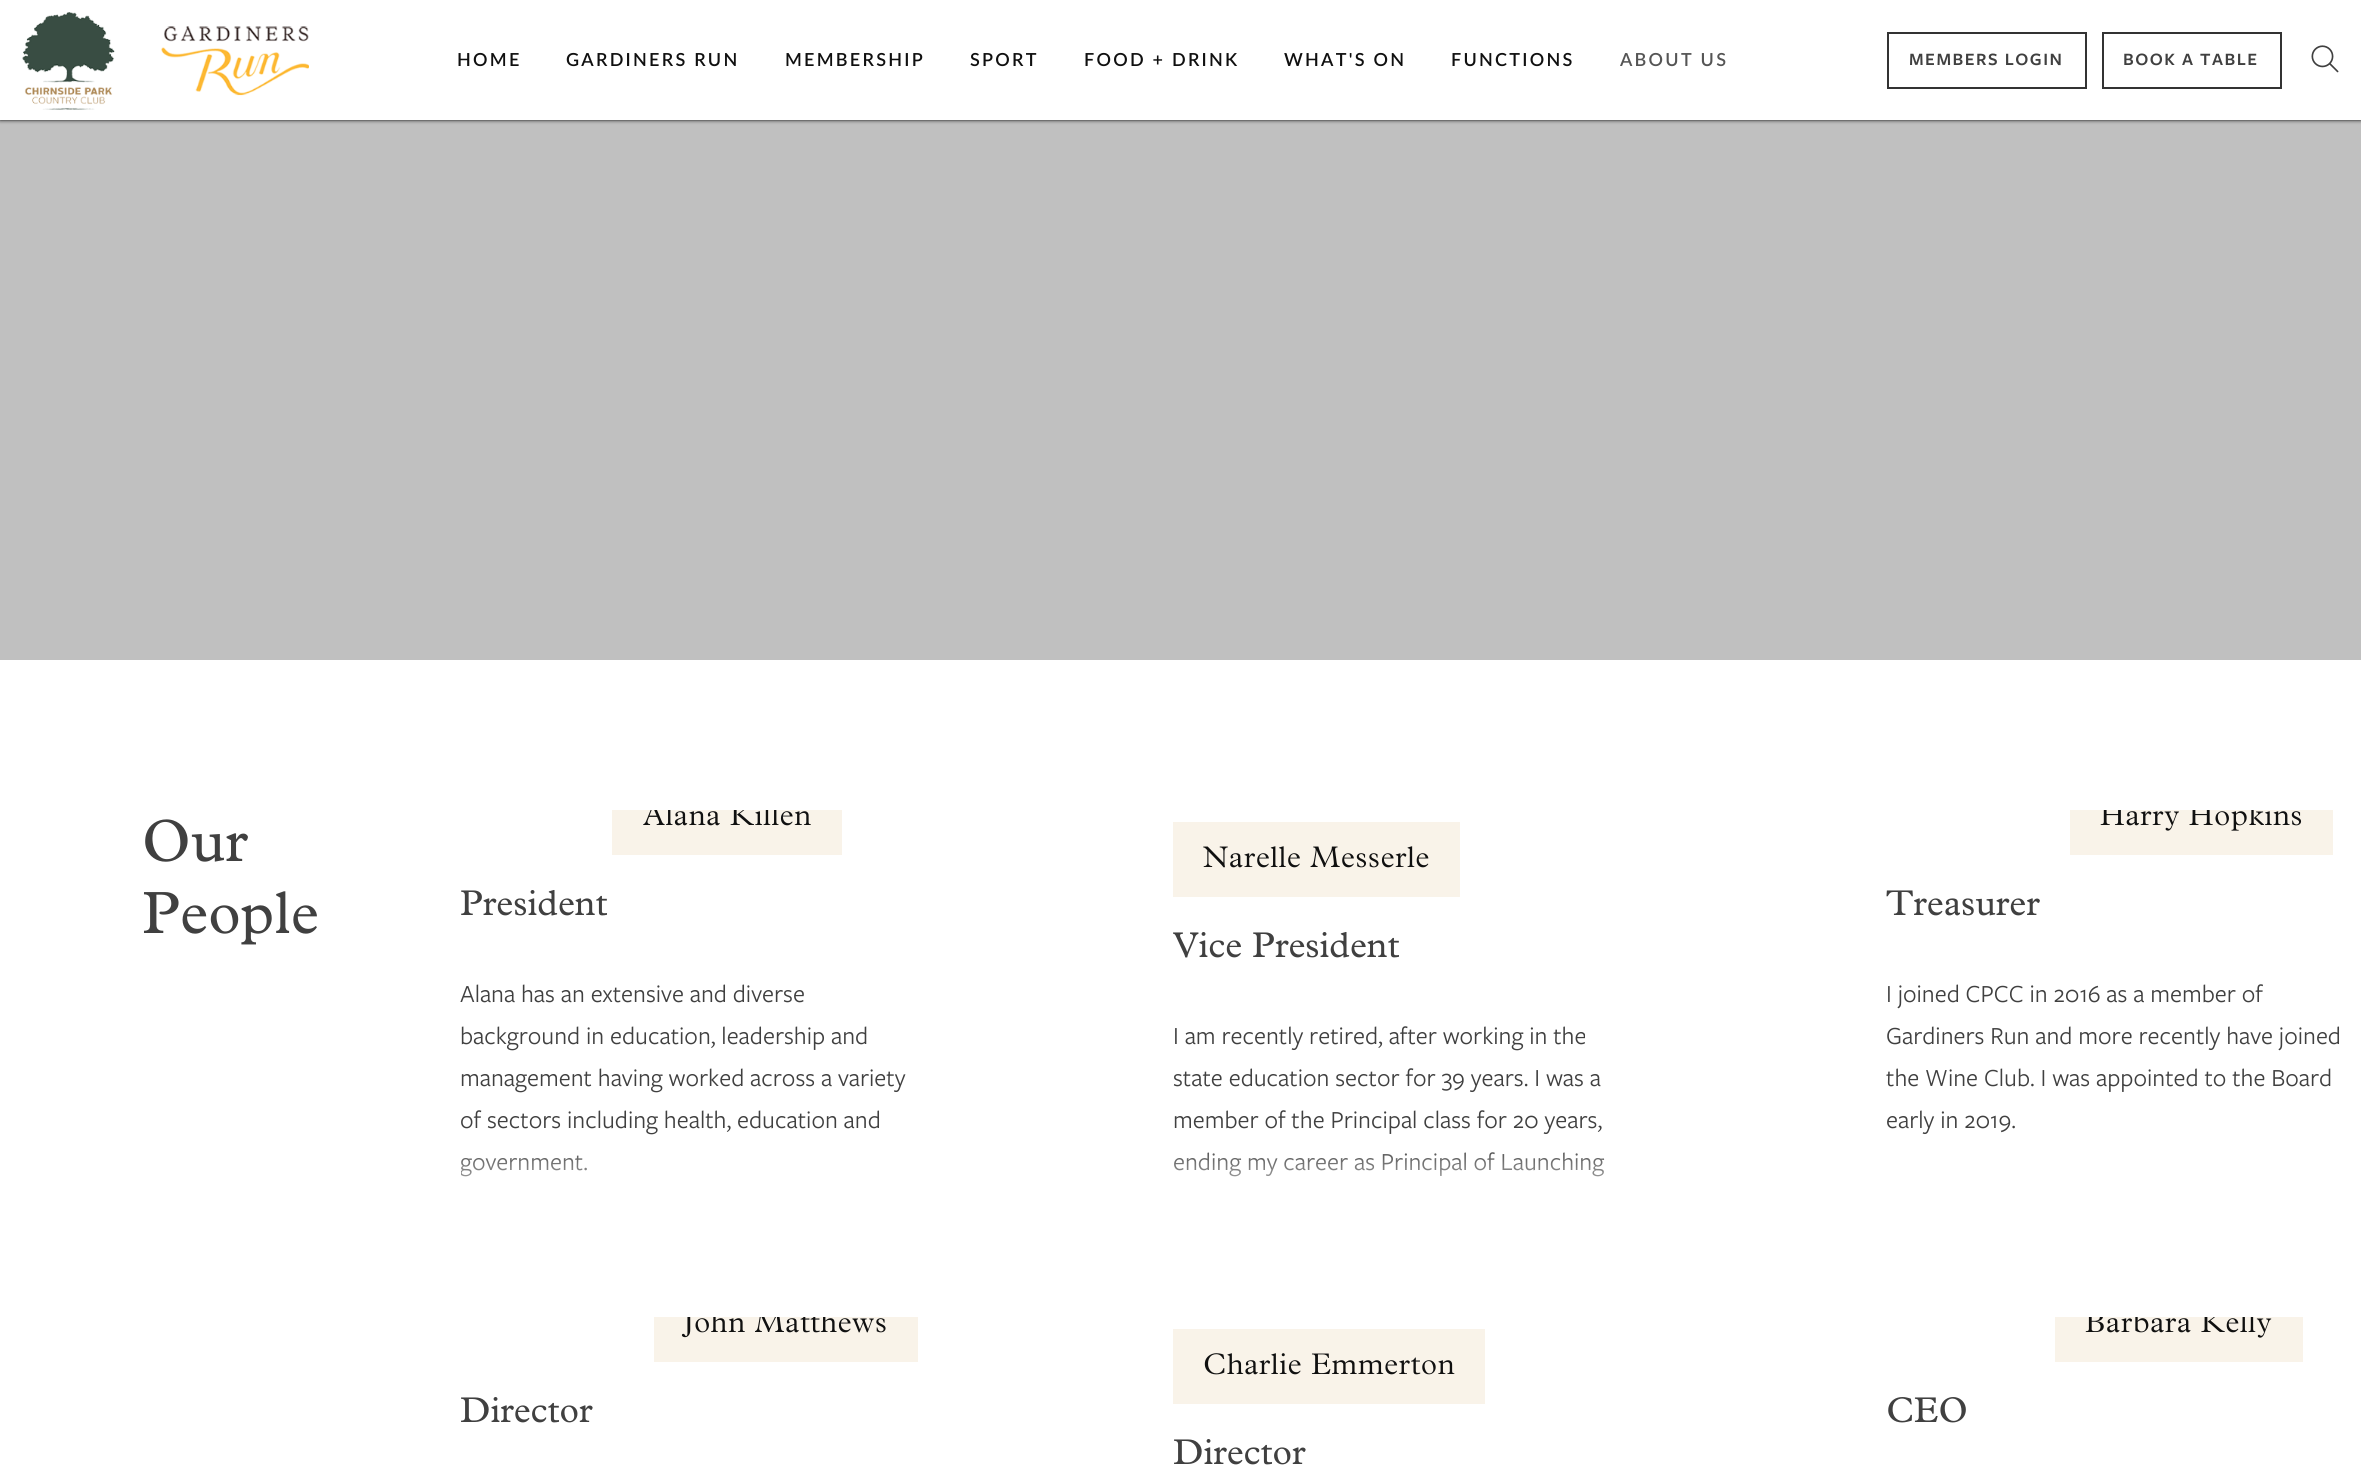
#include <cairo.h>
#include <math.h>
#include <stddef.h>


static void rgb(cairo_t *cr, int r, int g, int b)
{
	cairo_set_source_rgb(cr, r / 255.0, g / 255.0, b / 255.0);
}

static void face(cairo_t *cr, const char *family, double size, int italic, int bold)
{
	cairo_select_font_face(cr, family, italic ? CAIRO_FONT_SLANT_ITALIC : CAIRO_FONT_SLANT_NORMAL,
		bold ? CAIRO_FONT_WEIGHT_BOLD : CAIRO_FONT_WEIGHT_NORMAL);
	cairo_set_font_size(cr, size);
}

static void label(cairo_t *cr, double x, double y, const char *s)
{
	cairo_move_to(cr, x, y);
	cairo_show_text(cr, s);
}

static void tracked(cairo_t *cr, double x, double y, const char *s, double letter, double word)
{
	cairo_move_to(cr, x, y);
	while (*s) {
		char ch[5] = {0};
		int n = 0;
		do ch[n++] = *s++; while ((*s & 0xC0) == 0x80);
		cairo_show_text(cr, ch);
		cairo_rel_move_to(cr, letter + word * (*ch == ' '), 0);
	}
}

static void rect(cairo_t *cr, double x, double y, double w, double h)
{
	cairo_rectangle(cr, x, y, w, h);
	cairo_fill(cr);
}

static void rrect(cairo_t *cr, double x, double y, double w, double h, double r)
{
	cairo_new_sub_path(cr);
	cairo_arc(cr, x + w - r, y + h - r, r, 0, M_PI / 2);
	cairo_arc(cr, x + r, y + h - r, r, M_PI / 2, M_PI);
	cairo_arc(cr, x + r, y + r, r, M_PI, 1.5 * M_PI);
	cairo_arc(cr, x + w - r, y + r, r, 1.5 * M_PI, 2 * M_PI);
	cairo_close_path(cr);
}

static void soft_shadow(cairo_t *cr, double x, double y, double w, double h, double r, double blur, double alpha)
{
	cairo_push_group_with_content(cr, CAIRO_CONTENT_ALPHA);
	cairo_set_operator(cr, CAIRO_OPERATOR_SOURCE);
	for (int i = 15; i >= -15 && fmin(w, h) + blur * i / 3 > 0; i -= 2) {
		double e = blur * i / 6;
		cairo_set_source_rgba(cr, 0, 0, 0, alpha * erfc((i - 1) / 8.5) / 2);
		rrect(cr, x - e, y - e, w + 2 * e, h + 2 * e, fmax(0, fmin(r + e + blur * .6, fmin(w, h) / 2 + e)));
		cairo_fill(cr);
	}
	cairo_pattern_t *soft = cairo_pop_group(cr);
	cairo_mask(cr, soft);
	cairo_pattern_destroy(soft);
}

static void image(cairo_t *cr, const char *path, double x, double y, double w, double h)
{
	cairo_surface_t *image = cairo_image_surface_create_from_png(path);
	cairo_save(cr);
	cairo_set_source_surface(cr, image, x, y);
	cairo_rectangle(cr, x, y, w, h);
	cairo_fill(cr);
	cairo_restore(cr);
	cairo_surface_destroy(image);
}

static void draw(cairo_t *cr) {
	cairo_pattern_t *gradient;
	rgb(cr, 255, 255, 255);
	cairo_paint(cr);
	rgb(cr, 192, 192, 192);
	rect(cr, 0, 120, 2361, 540);
	rgb(cr, 0, 0, 0);
	soft_shadow(cr, 0, 0, 2361, 120, 0, 2, 1);
	rgb(cr, 255, 255, 255);
	rect(cr, 0, 0, 2361, 120);
	image(cr, "image0.png", 22, 12, 287, 98);
	face(cr, "Lato SemiBold", 18, 0, 0);
	rgb(cr, 16, 16, 16);
	tracked(cr, 457, 66, "HOME", 2.25, 0);
	tracked(cr, 566, 66, "GARDINERS RUN", 2.25, 0);
	tracked(cr, 785, 66, "MEMBERSHIP", 2.25, 0);
	tracked(cr, 970, 66, "SPORT", 2.25, 0);
	tracked(cr, 1084, 66, "FOOD + DRINK", 2.25, 0);
	tracked(cr, 1284, 66, "WHAT'S ON", 2.25, 0);
	tracked(cr, 1451, 66, "FUNCTIONS", 2.25, 0);
	rgb(cr, 85, 85, 85);
	tracked(cr, 1620, 66, "ABOUT US", 2.25, 0);
	cairo_rectangle(cr, 1888, 33, 198, 55);
	rgb(cr, 51, 51, 51);
	cairo_stroke(cr);
	face(cr, "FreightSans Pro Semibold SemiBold", 18, 0, 0);
	rgb(cr, 64, 64, 64);
	tracked(cr, 1909, 65, "MEMBERS LOGIN", 1.5, 0);
	cairo_rectangle(cr, 2103, 33, 178, 55);
	rgb(cr, 51, 51, 51);
	cairo_stroke(cr);
	rgb(cr, 64, 64, 64);
	tracked(cr, 2123, 65, "BOOK A TABLE", 1.5, 0);
	image(cr, "image1.png", 2311, 45, 28, 28);
	face(cr, "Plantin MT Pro", 60, 0, 0);
	label(cr, 142, 861, "Our");
	label(cr, 142, 933, "People");
	rgb(cr, 249, 243, 233);
	rect(cr, 612, 810, 230, 45);
	cairo_save(cr);
	cairo_rectangle(cr, 461, 810, 475, 417);
	cairo_clip(cr);
	face(cr, "Plantin MT Pro Light", 30, 0, 0);
	rgb(cr, 16, 16, 16);
	tracked(cr, 643, 825, "Alana Killen", 0.75, 0);
	cairo_restore(cr);
	face(cr, "Plantin MT Pro", 36, 0, 0);
	rgb(cr, 64, 64, 64);
	label(cr, 460, 915, "President");
	face(cr, "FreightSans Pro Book", 25.5, 0, 0);
	label(cr, 460, 1002, "Alana has an extensive and diverse");
	label(cr, 460, 1044, "background in education, leadership and");
	label(cr, 460, 1086, "management having worked across a variety");
	label(cr, 460, 1128, "of sectors including health, education and");
	cairo_save(cr);
	cairo_rectangle(cr, 461, 885, 475, 300);
	cairo_clip(cr);
	label(cr, 460, 1170, "government.");
	cairo_restore(cr);
	gradient = cairo_pattern_create_linear(698, 1143, 698, 1227);
	cairo_pattern_add_color_stop_rgba(gradient, 0, 1, 1, 1, 0);
	cairo_pattern_add_color_stop_rgba(gradient, 0.9, 1, 1, 1, 1);
	cairo_set_source(cr, gradient);
	cairo_pattern_destroy(gradient);
	rect(cr, 461, 1155, 126, 22);
	rgb(cr, 249, 243, 233);
	rect(cr, 1173, 822, 287, 75);
	face(cr, "Plantin MT Pro Light", 30, 0, 0);
	rgb(cr, 16, 16, 16);
	tracked(cr, 1203, 867, "Narelle Messerle", 0.75, 0);
	face(cr, "Plantin MT Pro", 36, 0, 0);
	rgb(cr, 64, 64, 64);
	label(cr, 1173, 957, "Vice President");
	face(cr, "FreightSans Pro Book", 25.5, 0, 0);
	label(cr, 1173, 1044, "I am recently retired, after working in the");
	label(cr, 1173, 1086, "state education sector for 39 years. I was a");
	label(cr, 1173, 1128, "member of the Principal class for 20 years,");
	label(cr, 1173, 1170, "ending my career as Principal of Launching");
	gradient = cairo_pattern_create_linear(1411, 1143, 1411, 1227);
	cairo_pattern_add_color_stop_rgba(gradient, 0, 1, 1, 1, 0);
	cairo_pattern_add_color_stop_rgba(gradient, 0.9, 1, 1, 1, 1);
	cairo_set_source(cr, gradient);
	cairo_pattern_destroy(gradient);
	rect(cr, 1174, 1152, 430, 25);
	rgb(cr, 249, 243, 233);
	rect(cr, 2070, 810, 263, 45);
	cairo_save(cr);
	cairo_rectangle(cr, 1886, 810, 475, 417);
	cairo_clip(cr);
	face(cr, "Plantin MT Pro Light", 30, 0, 0);
	rgb(cr, 16, 16, 16);
	tracked(cr, 2100, 825, "Harry Hopkins", 0.75, 0);
	cairo_restore(cr);
	face(cr, "Plantin MT Pro", 36, 0, 0);
	rgb(cr, 64, 64, 64);
	label(cr, 1886, 915, "Treasurer");
	face(cr, "FreightSans Pro Book", 25.5, 0, 0);
	label(cr, 1886, 1002, "I joined CPCC in 2016 as a member of");
	label(cr, 1886, 1044, "Gardiners Run and more recently have joined");
	label(cr, 1886, 1086, "the Wine Club. I was appointed to the Board");
	label(cr, 1886, 1128, "early in 2019.");
	rgb(cr, 249, 243, 233);
	rect(cr, 654, 1317, 264, 45);
	cairo_save(cr);
	cairo_rectangle(cr, 461, 1317, 475, 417);
	cairo_clip(cr);
	face(cr, "Plantin MT Pro Light", 30, 0, 0);
	rgb(cr, 16, 16, 16);
	tracked(cr, 684, 1332, "John Matthews", 0.75, 0);
	cairo_restore(cr);
	face(cr, "Plantin MT Pro", 36, 0, 0);
	rgb(cr, 64, 64, 64);
	label(cr, 460, 1422, "Director");
	rgb(cr, 249, 243, 233);
	rect(cr, 1173, 1329, 312, 75);
	face(cr, "Plantin MT Pro Light", 30, 0, 0);
	rgb(cr, 16, 16, 16);
	tracked(cr, 1203, 1374, "Charlie Emmerton", 0.75, 0);
	face(cr, "Plantin MT Pro", 36, 0, 0);
	rgb(cr, 64, 64, 64);
	label(cr, 1173, 1464, "Director");
	rgb(cr, 249, 243, 233);
	rect(cr, 2055, 1317, 248, 45);
	cairo_save(cr);
	cairo_rectangle(cr, 1886, 1317, 475, 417);
	cairo_clip(cr);
	face(cr, "Plantin MT Pro Light", 30, 0, 0);
	rgb(cr, 16, 16, 16);
	tracked(cr, 2085, 1332, "Barbara Kelly", 0.75, 0);
	cairo_restore(cr);
	rgb(cr, 64, 64, 64);
	label(cr, 1886, 1422, "CEO");
}

int main(void) {
	cairo_surface_t *surface = cairo_image_surface_create(CAIRO_FORMAT_RGB24, 2361, 1480);
	cairo_t *cr = cairo_create(surface);
	cairo_font_options_t *options = cairo_font_options_create();
	cairo_font_options_set_hint_metrics(options, CAIRO_HINT_METRICS_OFF);
	cairo_font_options_set_hint_style(options, CAIRO_HINT_STYLE_NONE);
	cairo_set_font_options(cr, options);
	cairo_set_miter_limit(cr, 4);
	draw(cr);
	cairo_surface_write_to_png(surface, "render.png");
	cairo_font_options_destroy(options);
	cairo_destroy(cr);
	cairo_surface_destroy(surface);
	return 0;
}
